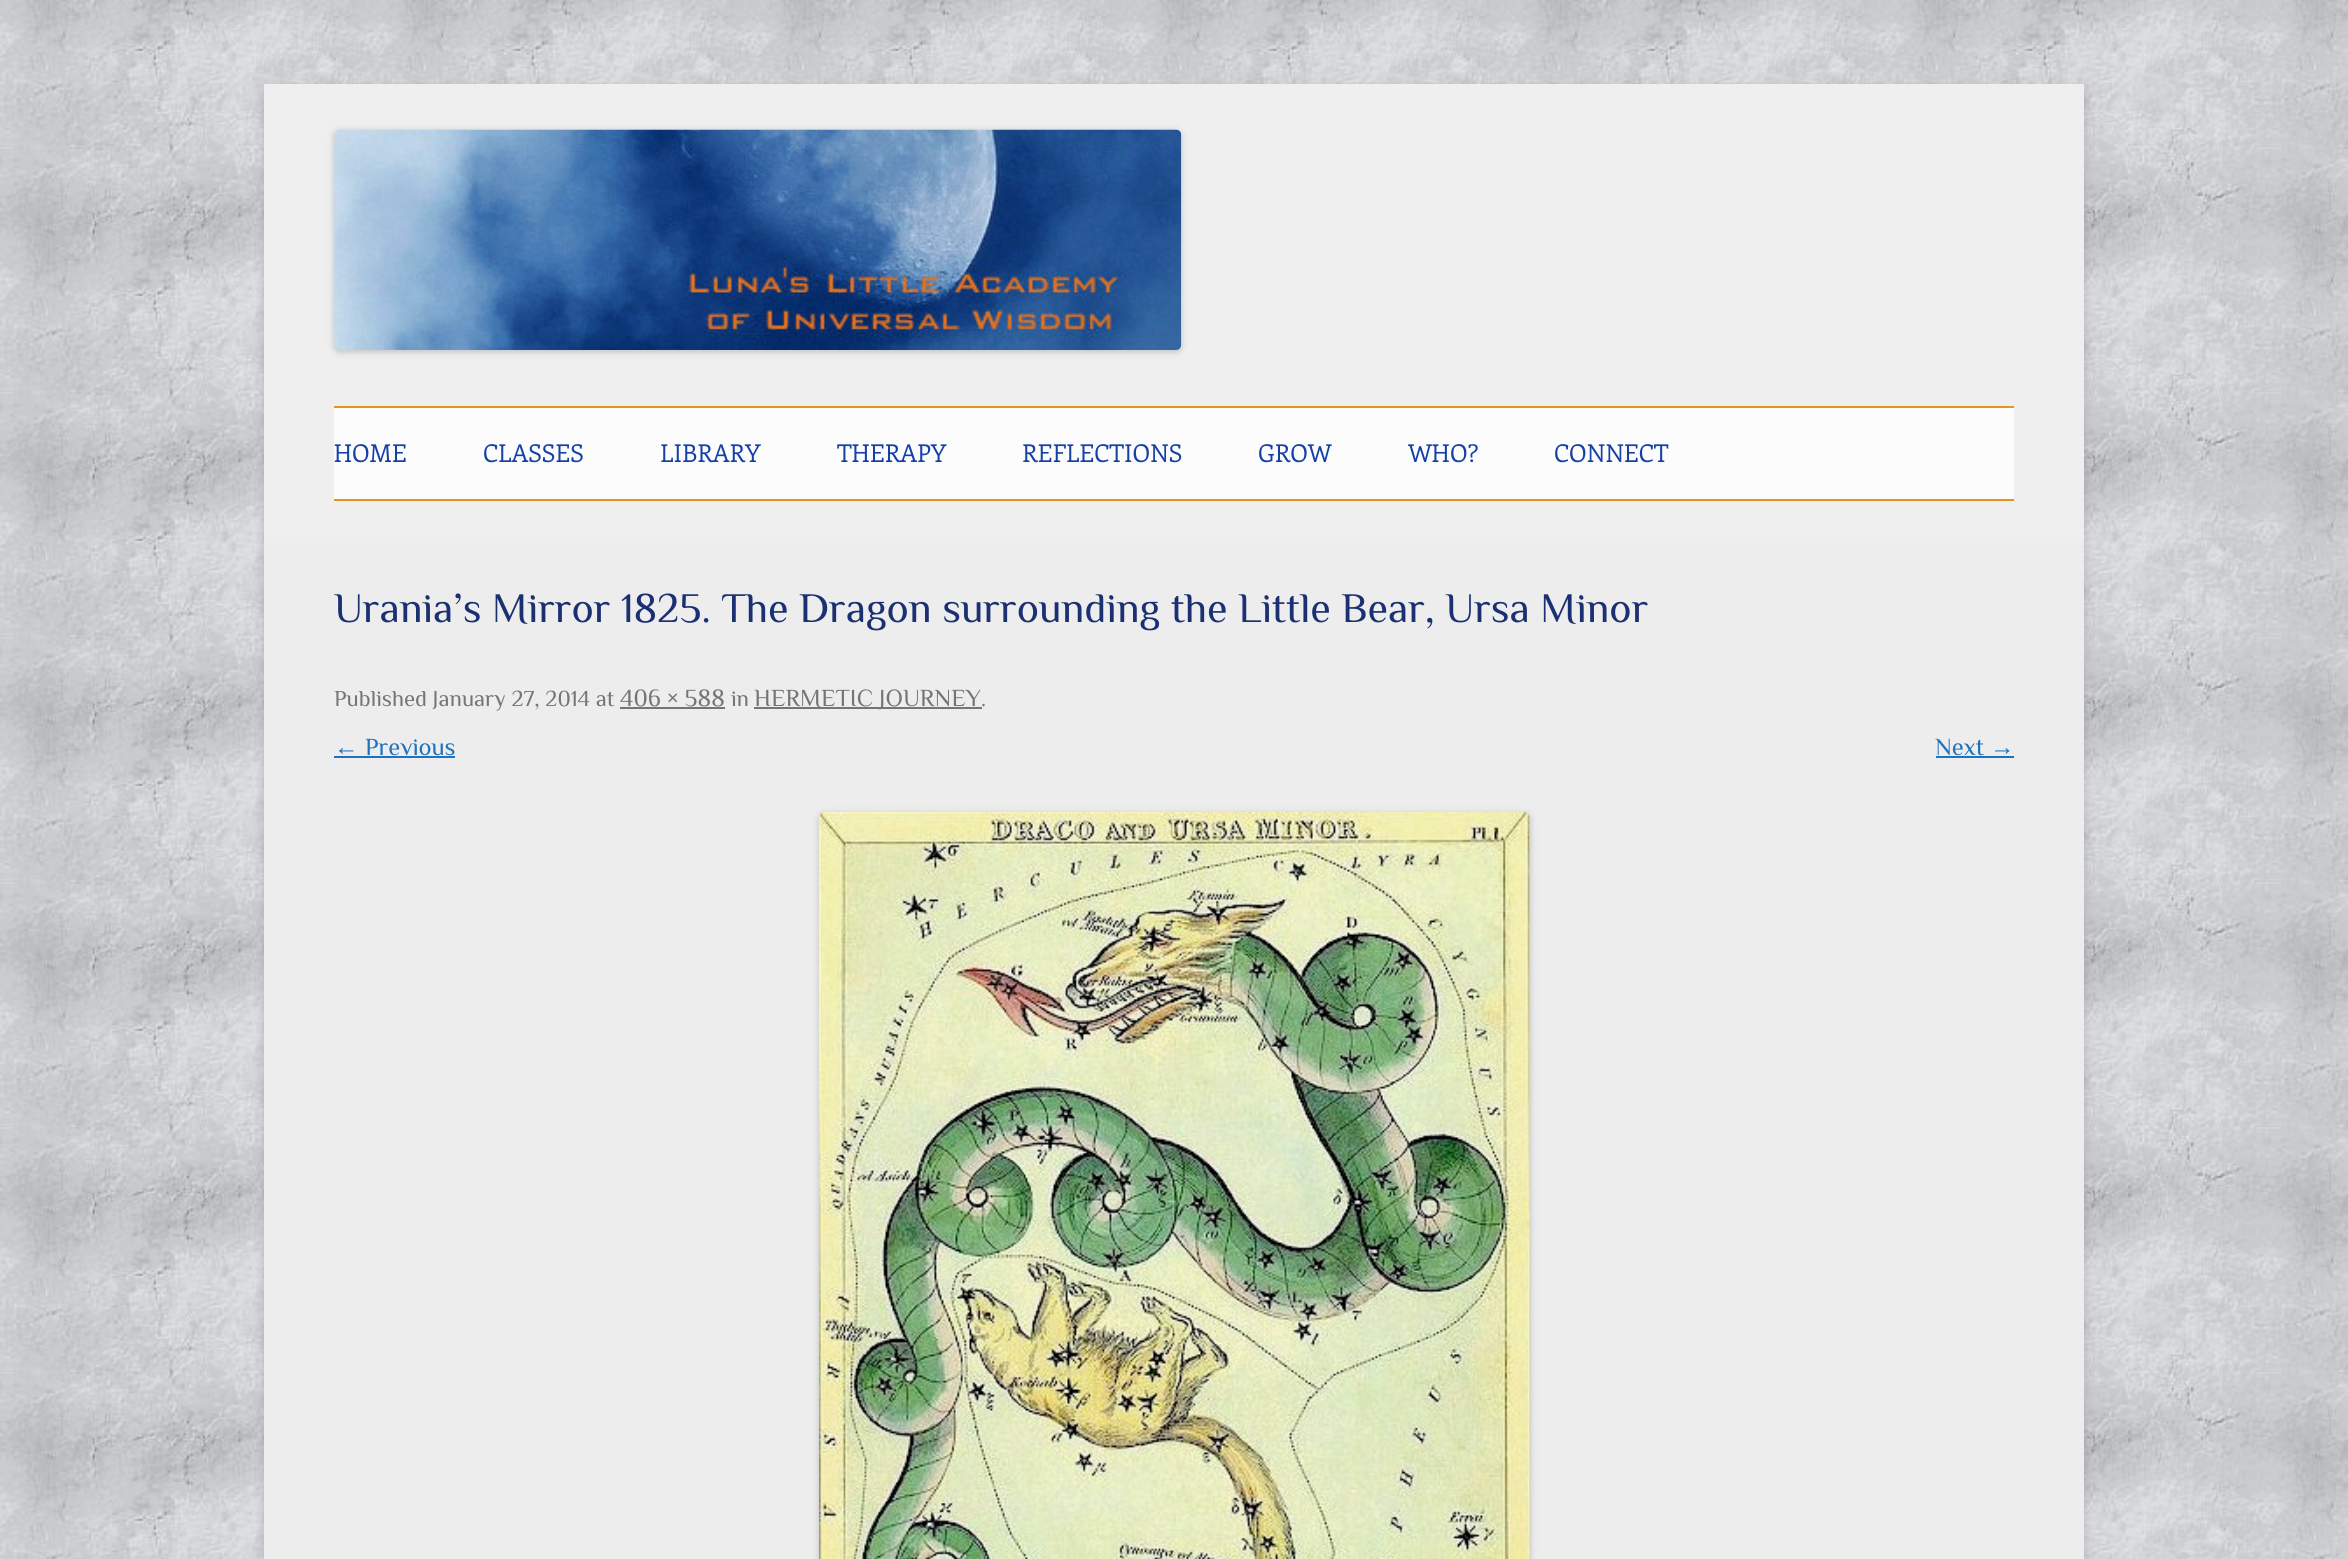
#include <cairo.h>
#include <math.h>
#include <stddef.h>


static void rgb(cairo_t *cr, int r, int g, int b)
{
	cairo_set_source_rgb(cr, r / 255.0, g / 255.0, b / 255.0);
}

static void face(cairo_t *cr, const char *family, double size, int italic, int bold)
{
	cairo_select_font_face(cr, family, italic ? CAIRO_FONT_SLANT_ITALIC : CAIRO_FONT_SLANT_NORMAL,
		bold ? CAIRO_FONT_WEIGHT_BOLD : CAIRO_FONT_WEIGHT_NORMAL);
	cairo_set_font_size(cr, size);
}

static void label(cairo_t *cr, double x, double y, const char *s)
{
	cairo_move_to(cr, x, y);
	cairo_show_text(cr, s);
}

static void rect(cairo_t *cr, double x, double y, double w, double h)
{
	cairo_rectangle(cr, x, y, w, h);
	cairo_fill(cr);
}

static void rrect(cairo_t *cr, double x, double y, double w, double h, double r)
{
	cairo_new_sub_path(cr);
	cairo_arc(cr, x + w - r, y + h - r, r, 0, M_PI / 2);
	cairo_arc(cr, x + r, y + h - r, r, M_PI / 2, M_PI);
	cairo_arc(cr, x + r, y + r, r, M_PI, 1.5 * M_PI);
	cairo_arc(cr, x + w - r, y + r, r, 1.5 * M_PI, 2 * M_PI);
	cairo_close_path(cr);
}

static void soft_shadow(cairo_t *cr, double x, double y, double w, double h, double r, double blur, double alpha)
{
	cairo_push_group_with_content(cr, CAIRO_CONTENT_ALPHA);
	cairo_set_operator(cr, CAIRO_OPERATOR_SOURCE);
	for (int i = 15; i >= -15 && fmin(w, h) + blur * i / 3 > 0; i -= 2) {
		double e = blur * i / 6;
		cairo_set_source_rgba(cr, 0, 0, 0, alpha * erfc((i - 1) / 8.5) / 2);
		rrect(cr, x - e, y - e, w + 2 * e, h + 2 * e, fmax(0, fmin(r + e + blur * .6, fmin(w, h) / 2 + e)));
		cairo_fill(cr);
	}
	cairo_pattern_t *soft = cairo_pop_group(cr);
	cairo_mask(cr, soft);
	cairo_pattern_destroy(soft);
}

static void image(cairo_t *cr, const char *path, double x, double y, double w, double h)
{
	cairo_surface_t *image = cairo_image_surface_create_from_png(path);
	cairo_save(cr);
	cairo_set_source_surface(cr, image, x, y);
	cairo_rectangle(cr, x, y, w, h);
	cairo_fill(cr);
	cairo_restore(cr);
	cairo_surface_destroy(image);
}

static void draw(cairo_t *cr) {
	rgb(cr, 255, 255, 255);
	cairo_paint(cr);
	image(cr, "image0.png", 0, 0, 2348, 1559);
	rgb(cr, 100, 100, 100);
	soft_shadow(cr, 264, 88, 1820, 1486, 0, 5, 0.3);
	rgb(cr, 237, 237, 237);
	rect(cr, 264, 543, 1820, 1016);
	rgb(cr, 239, 239, 239);
	rect(cr, 264, 84, 1820, 459);
	rgb(cr, 0, 0, 0);
	soft_shadow(cr, 334, 131, 847, 221, 5, 3.5, 0.2);
	image(cr, "image1.png", 334, 129, 848, 221);
	rgb(cr, 252, 252, 252);
	rect(cr, 334, 408, 1680, 91);
	rgb(cr, 226, 148, 31);
	rect(cr, 334, 406, 1680, 2);
	rect(cr, 334, 499, 1680, 2);
	face(cr, "Enriqueta", 24.5, 0, 0);
	rgb(cr, 20, 64, 168);
	label(cr, 334, 462, "HOME");
	label(cr, 483, 462, "CLASSES");
	label(cr, 660, 462, "LIBRARY");
	label(cr, 837, 462, "THERAPY");
	label(cr, 1022, 462, "REFLECTIONS");
	label(cr, 1258, 462, "GROW");
	label(cr, 1408, 462, "WHO?");
	label(cr, 1554, 462, "CONNECT");
	face(cr, "Philosopher", 42, 0, 0);
	rgb(cr, 26, 48, 114);
	label(cr, 334, 622, "Urania’s Mirror 1825. The Dragon surrounding the Little Bear, Ursa Minor");
	face(cr, "Philosopher", 22.75, 0, 0);
	rgb(cr, 117, 117, 117);
	label(cr, 334, 706, "Published January 27, 2014 at");
	face(cr, "Philosopher", 24.5, 0, 0);
	label(cr, 620, 706, "406 × 588");
	rect(cr, 620, 707, 105, 2);
	face(cr, "Philosopher", 22.75, 0, 0);
	label(cr, 731, 706, "in");
	rect(cr, 754, 707, 228, 2);
	face(cr, "Philosopher", 24.5, 0, 0);
	label(cr, 754, 706, "HERMETIC JOURNEY");
	face(cr, "Philosopher", 22.75, 0, 0);
	label(cr, 981, 706, ".");
	face(cr, "Liberation Serif", 24.5, 0, 0);
	rgb(cr, 30, 115, 190);
	label(cr, 334, 755, "←");
	rect(cr, 334, 756, 121, 2);
	face(cr, "Philosopher", 24.5, 0, 0);
	label(cr, 365, 755, "Previous");
	label(cr, 1935, 755, "Next");
	face(cr, "Liberation Serif", 24.5, 0, 0);
	label(cr, 1990, 755, "→");
	rect(cr, 1936, 756, 78, 2);
	rgb(cr, 0, 0, 0);
	soft_shadow(cr, 819, 814, 711, 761, 5, 3.5, 0.2);
	image(cr, "image2.png", 819, 812, 711, 747);
}

int main(void) {
	cairo_surface_t *surface = cairo_image_surface_create(CAIRO_FORMAT_RGB24, 2348, 1559);
	cairo_t *cr = cairo_create(surface);
	cairo_font_options_t *options = cairo_font_options_create();
	cairo_font_options_set_hint_metrics(options, CAIRO_HINT_METRICS_OFF);
	cairo_font_options_set_hint_style(options, CAIRO_HINT_STYLE_NONE);
	cairo_set_font_options(cr, options);
	cairo_set_miter_limit(cr, 4);
	draw(cr);
	cairo_surface_write_to_png(surface, "render.png");
	cairo_font_options_destroy(options);
	cairo_destroy(cr);
	cairo_surface_destroy(surface);
	return 0;
}
